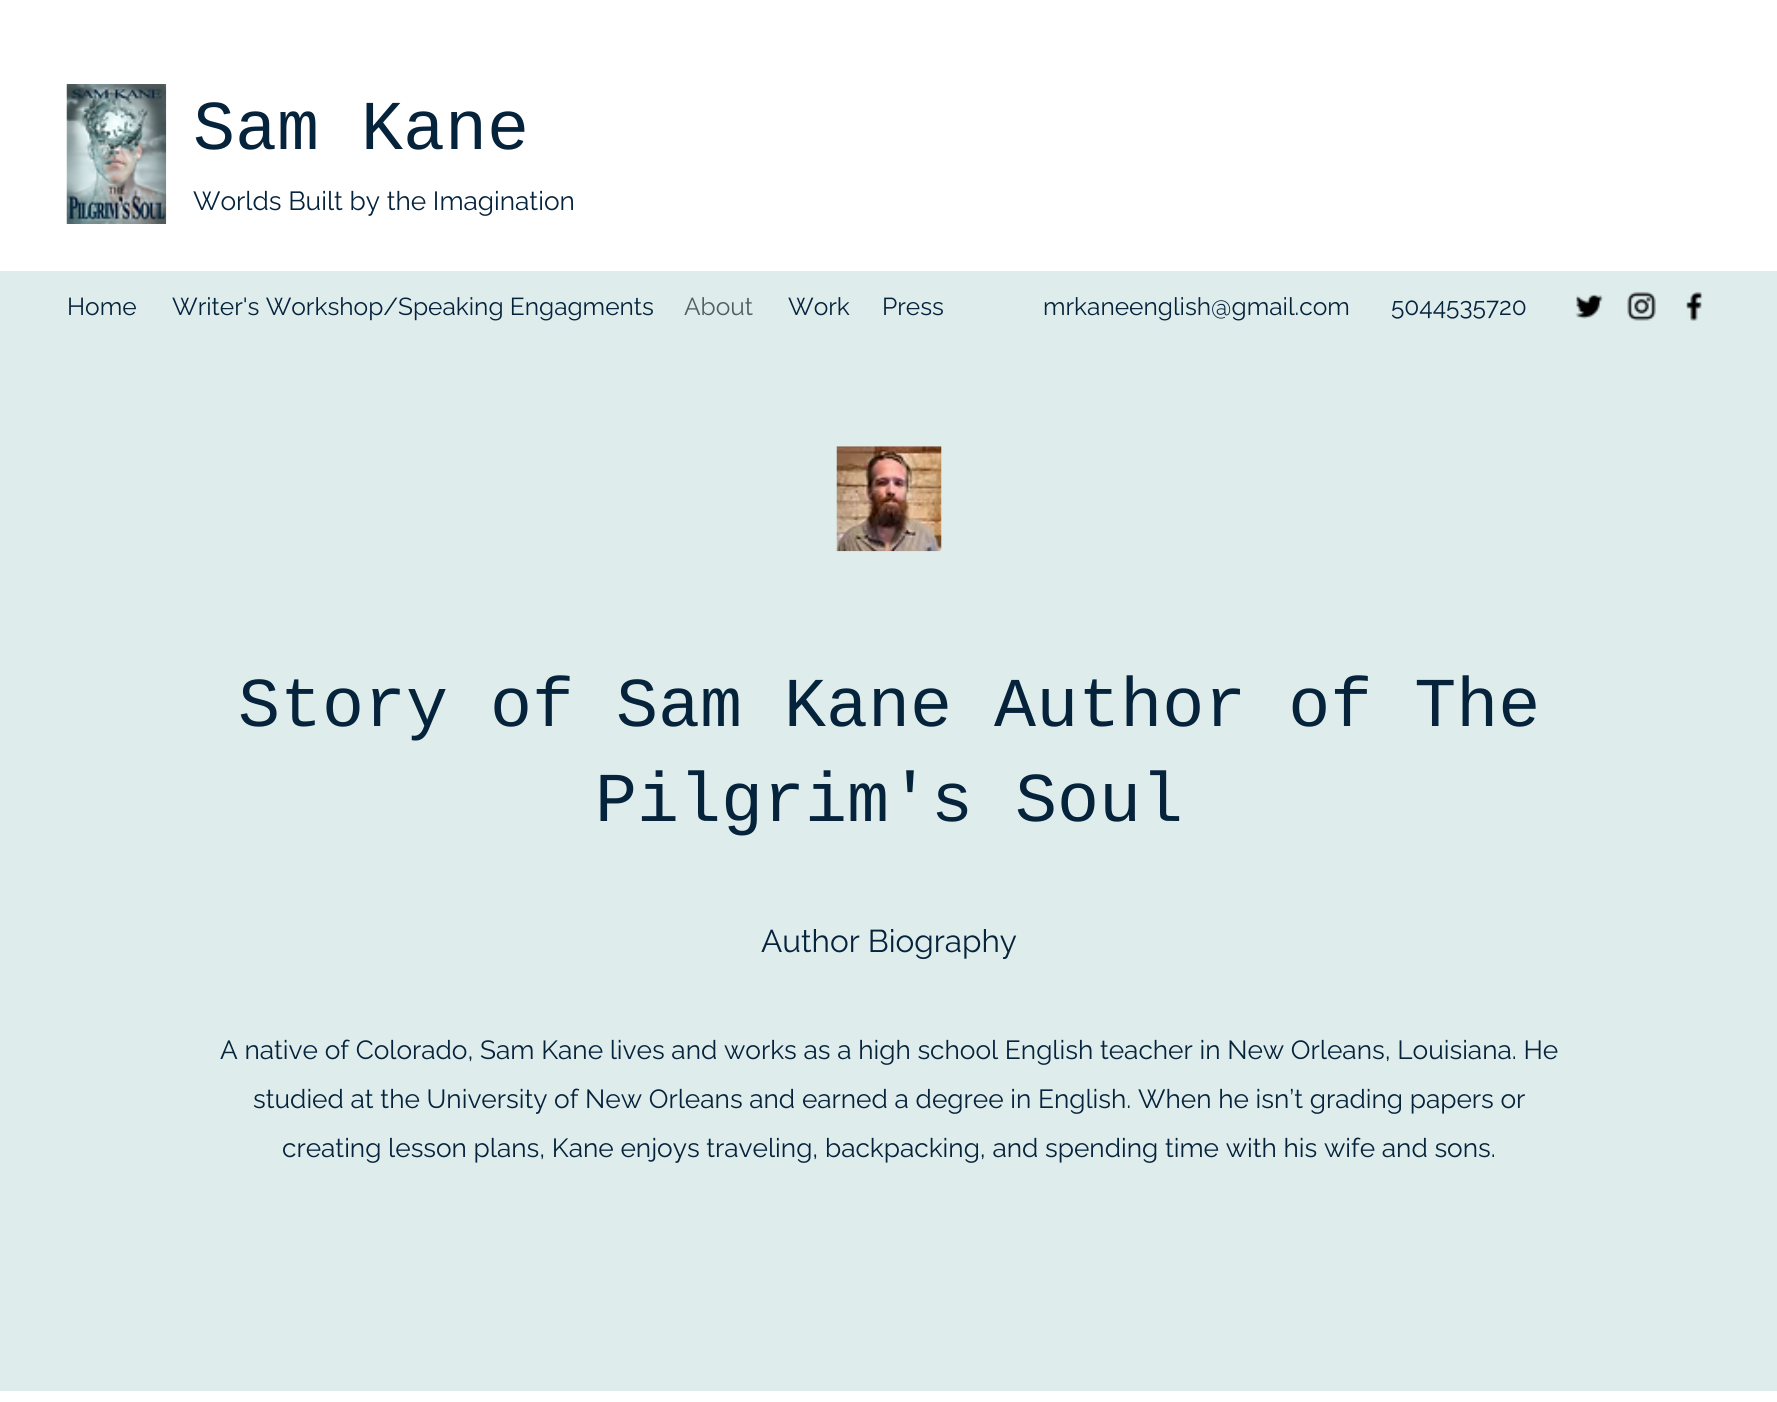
#include <cairo.h>
#include <math.h>
#include <stddef.h>


static void rgb(cairo_t *cr, int r, int g, int b)
{
	cairo_set_source_rgb(cr, r / 255.0, g / 255.0, b / 255.0);
}

static void face(cairo_t *cr, const char *family, double size, int italic, int bold)
{
	cairo_select_font_face(cr, family, italic ? CAIRO_FONT_SLANT_ITALIC : CAIRO_FONT_SLANT_NORMAL,
		bold ? CAIRO_FONT_WEIGHT_BOLD : CAIRO_FONT_WEIGHT_NORMAL);
	cairo_set_font_size(cr, size);
}

static void label(cairo_t *cr, double x, double y, const char *s)
{
	cairo_move_to(cr, x, y);
	cairo_show_text(cr, s);
}

static void rect(cairo_t *cr, double x, double y, double w, double h)
{
	cairo_rectangle(cr, x, y, w, h);
	cairo_fill(cr);
}

static void image(cairo_t *cr, const char *path, double x, double y, double w, double h)
{
	cairo_surface_t *image = cairo_image_surface_create_from_png(path);
	cairo_save(cr);
	cairo_set_source_surface(cr, image, x, y);
	cairo_rectangle(cr, x, y, w, h);
	cairo_fill(cr);
	cairo_restore(cr);
	cairo_surface_destroy(image);
}

static void draw(cairo_t *cr) {
	rgb(cr, 255, 255, 255);
	cairo_paint(cr);
	image(cr, "image0.png", 66, 84, 101, 140);
	face(cr, "Liberation Mono", 70, 0, 0);
	rgb(cr, 6, 35, 60);
	label(cr, 193, 149, "Sam Kane");
	face(cr, "Raleway", 26.25, 0, 0);
	label(cr, 193, 210, "Worlds Built by the Imagination");
	rgb(cr, 222, 236, 236);
	rect(cr, 0, 271, 1777, 1120);
	face(cr, "Raleway", 24.5, 0, 0);
	rgb(cr, 6, 35, 60);
	label(cr, 67, 315, "Home");
	label(cr, 172, 315, "Writer's Workshop/Speaking Engagments");
	rgb(cr, 81, 95, 96);
	label(cr, 684, 315, "About");
	rgb(cr, 6, 35, 60);
	label(cr, 788, 315, "Work");
	label(cr, 882, 315, "Press");
	label(cr, 1043, 315, "mrkaneenglish@gmail.com");
	label(cr, 1391, 315, "5044535720");
	image(cr, "image1.png", 1575, 294, 29, 25);
	image(cr, "image2.png", 1627, 291, 29, 30);
	image(cr, "image3.png", 1686, 291, 17, 30);
	image(cr, "image4.png", 836, 446, 106, 106);
	face(cr, "Liberation Mono", 70, 0, 0);
	label(cr, 238, 726, "Story of Sam Kane Author of The");
	label(cr, 595, 821, "Pilgrim's Soul");
	face(cr, "Raleway", 31.5, 0, 0);
	label(cr, 761, 952, "Author Biography");
	face(cr, "Raleway", 26.25, 0, 0);
	label(cr, 220, 1059, "A native of Colorado, Sam Kane lives and works as a high school English teacher in New Orleans, Louisiana. He");
	label(cr, 253, 1108, "studied at the University of New Orleans and earned a degree in English. When he isn’t grading papers or");
	label(cr, 282, 1157, "creating lesson plans, Kane enjoys traveling, backpacking, and spending time with his wife and sons.");
}

int main(void) {
	cairo_surface_t *surface = cairo_image_surface_create(CAIRO_FORMAT_RGB24, 1777, 1402);
	cairo_t *cr = cairo_create(surface);
	cairo_font_options_t *options = cairo_font_options_create();
	cairo_font_options_set_hint_metrics(options, CAIRO_HINT_METRICS_OFF);
	cairo_font_options_set_hint_style(options, CAIRO_HINT_STYLE_NONE);
	cairo_set_font_options(cr, options);
	cairo_set_miter_limit(cr, 4);
	draw(cr);
	cairo_surface_write_to_png(surface, "render.png");
	cairo_font_options_destroy(options);
	cairo_destroy(cr);
	cairo_surface_destroy(surface);
	return 0;
}
